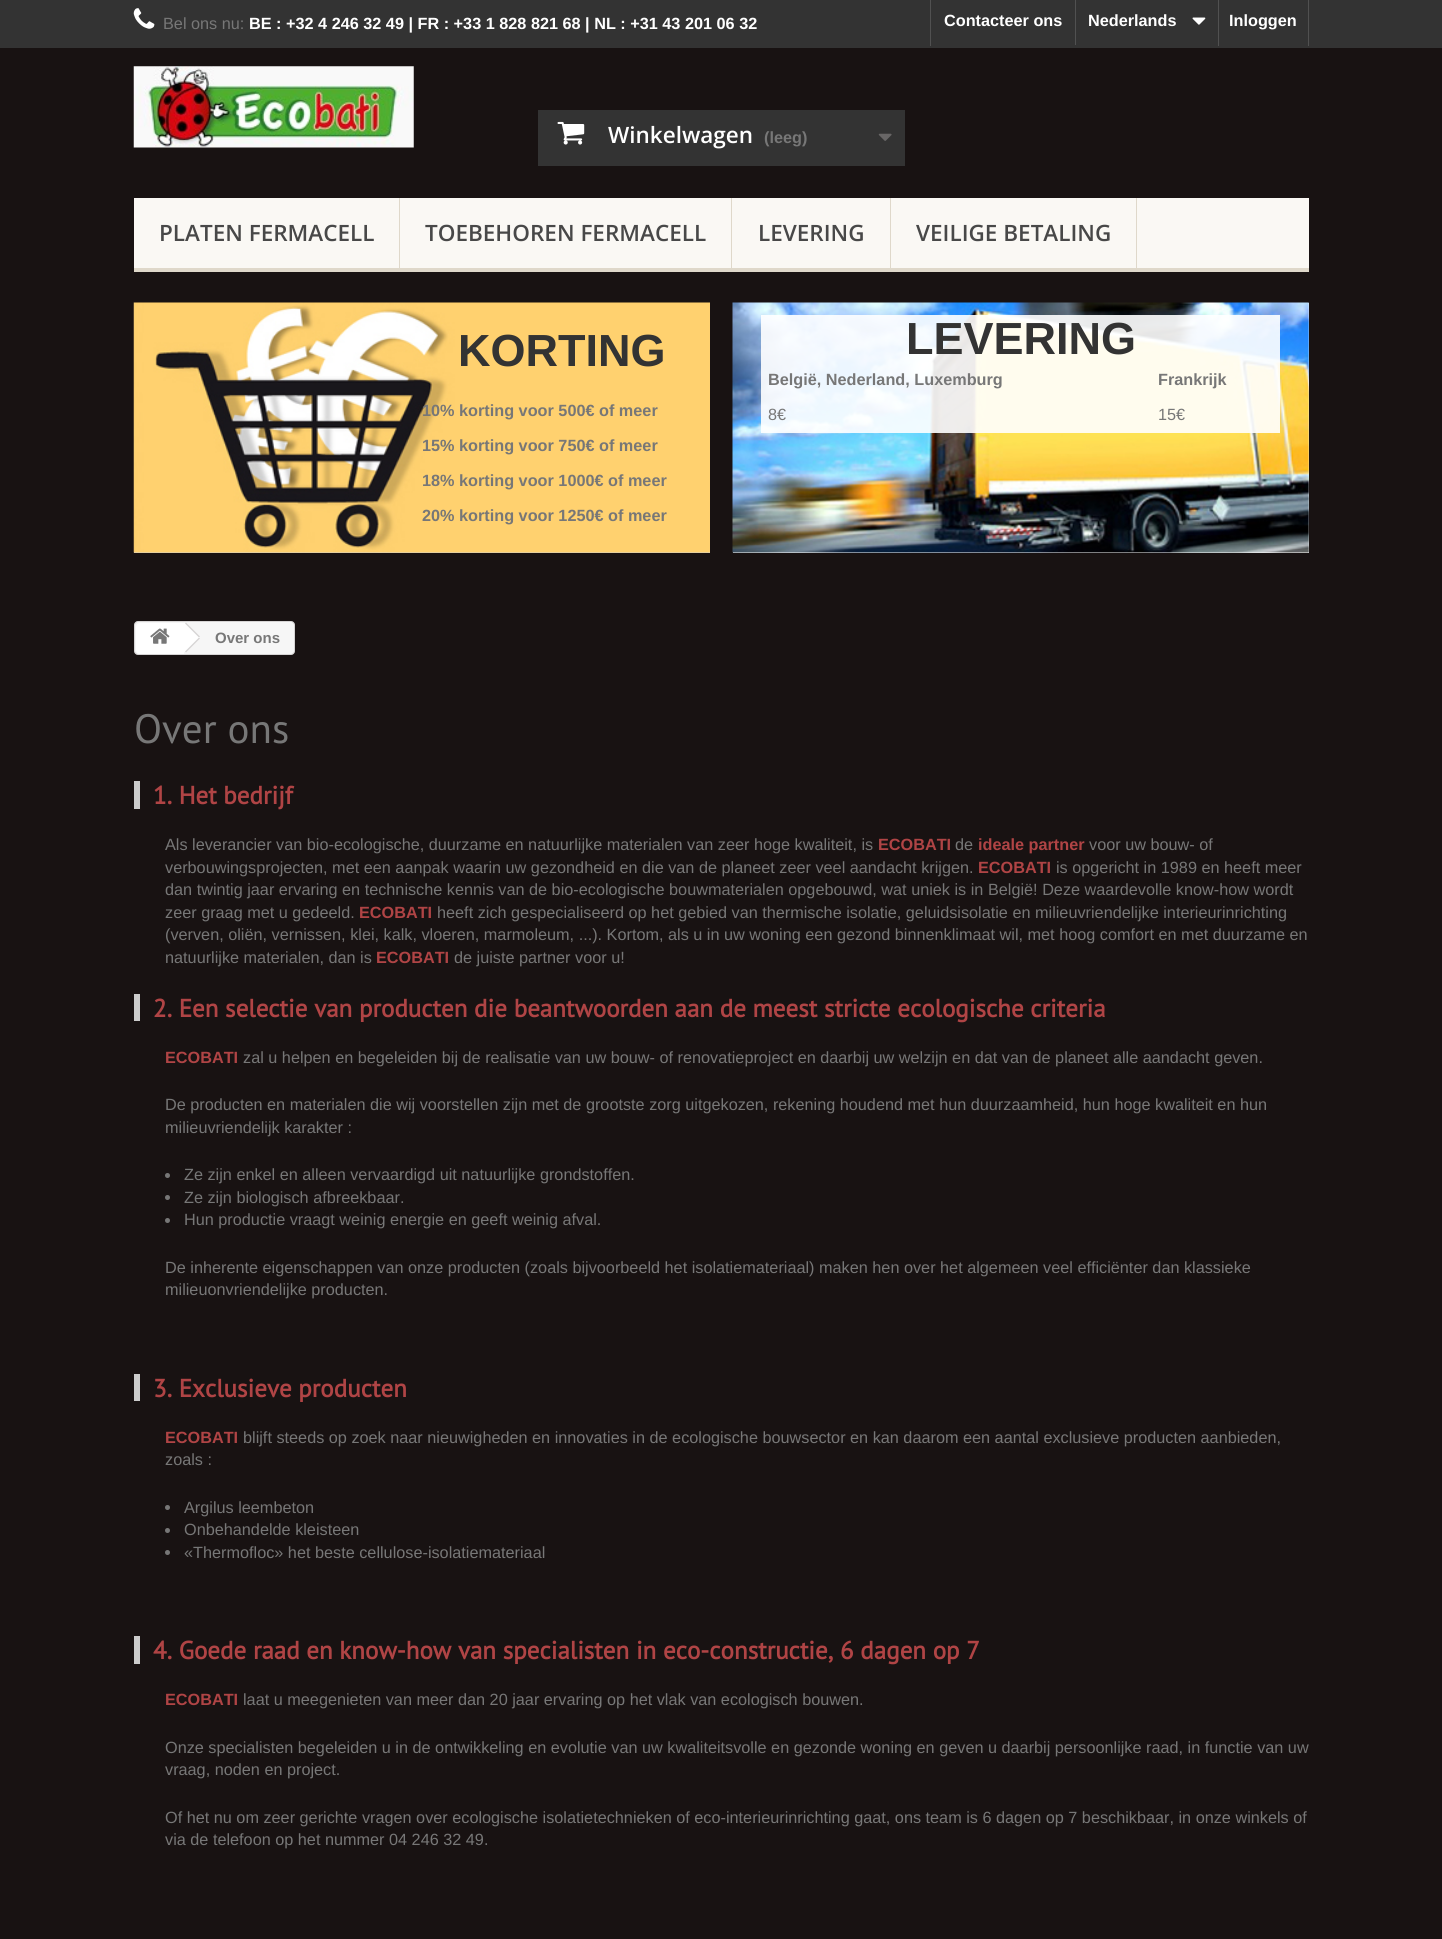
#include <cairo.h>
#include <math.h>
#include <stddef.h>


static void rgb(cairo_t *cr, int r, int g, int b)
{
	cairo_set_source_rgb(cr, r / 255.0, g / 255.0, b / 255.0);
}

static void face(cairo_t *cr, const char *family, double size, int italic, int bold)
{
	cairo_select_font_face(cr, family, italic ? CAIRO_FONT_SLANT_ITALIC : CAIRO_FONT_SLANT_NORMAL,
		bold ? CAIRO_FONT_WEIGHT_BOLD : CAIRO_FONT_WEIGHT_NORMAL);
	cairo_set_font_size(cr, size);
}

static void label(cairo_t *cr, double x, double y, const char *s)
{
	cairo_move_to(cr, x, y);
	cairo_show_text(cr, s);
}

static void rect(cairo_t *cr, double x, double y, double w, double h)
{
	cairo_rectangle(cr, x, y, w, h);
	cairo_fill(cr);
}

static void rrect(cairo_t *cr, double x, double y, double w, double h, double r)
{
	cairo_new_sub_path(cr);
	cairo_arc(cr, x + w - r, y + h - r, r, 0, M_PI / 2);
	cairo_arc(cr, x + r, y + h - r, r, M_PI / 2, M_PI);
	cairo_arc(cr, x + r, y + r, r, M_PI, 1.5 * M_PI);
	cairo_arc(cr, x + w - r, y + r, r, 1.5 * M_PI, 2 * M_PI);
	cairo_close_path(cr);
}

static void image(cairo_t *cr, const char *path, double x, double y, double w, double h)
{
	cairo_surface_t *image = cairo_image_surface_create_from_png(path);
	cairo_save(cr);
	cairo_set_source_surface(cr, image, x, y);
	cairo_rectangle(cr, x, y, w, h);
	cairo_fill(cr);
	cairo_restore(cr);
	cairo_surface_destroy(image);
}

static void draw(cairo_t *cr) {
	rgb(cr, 24, 18, 18);
	cairo_paint(cr);
	rgb(cr, 51, 51, 51);
	rect(cr, 0, 0, 1442, 48);
	image(cr, "image0.png", 133, 8, 22, 21);
	face(cr, "Liberation Sans", 16.25, 0, 0);
	rgb(cr, 119, 119, 119);
	label(cr, 163, 29, "Bel ons nu:");
	face(cr, "Liberation Sans", 16.25, 0, 1);
	rgb(cr, 255, 255, 255);
	label(cr, 249, 29, "BE : +32 4 246 32 49 | FR : +33 1 828 821 68 | NL : +31 43 201 06 32");
	rgb(cr, 81, 81, 81);
	rect(cr, 930, 0, 1, 46);
	rgb(cr, 255, 255, 255);
	label(cr, 944, 26, "Contacteer ons");
	rgb(cr, 81, 81, 81);
	rect(cr, 1075, 0, 1, 45);
	rgb(cr, 255, 255, 255);
	label(cr, 1088, 26, "Nederlands");
	image(cr, "image1.png", 1192, 17, 14, 8);
	rgb(cr, 81, 81, 81);
	rect(cr, 1308, 0, 1, 46);
	rect(cr, 1218, 0, 1, 46);
	rgb(cr, 255, 255, 255);
	label(cr, 1229, 26, "Inloggen");
	image(cr, "image2.png", 133, 66, 281, 82);
	rgb(cr, 51, 51, 51);
	rect(cr, 538, 110, 367, 56);
	image(cr, "image3.png", 557, 121, 28, 24);
	face(cr, "Open Sans SemiBold", 22.5, 0, 0);
	rgb(cr, 255, 255, 255);
	label(cr, 608, 143, "Winkelwagen");
	face(cr, "Liberation Sans", 16.25, 0, 1);
	rgb(cr, 119, 119, 119);
	label(cr, 764, 143, "(leeg)");
	image(cr, "image4.png", 878, 133, 14, 8);
	rgb(cr, 250, 248, 244);
	rect(cr, 134, 198, 1175, 70);
	rgb(cr, 223, 216, 202);
	rect(cr, 134, 268, 1175, 4);
	rect(cr, 399, 198, 1, 73);
	face(cr, "Open Sans SemiBold", 22.5, 0, 0);
	rgb(cr, 72, 72, 72);
	label(cr, 159, 241, "PLATEN FERMACELL");
	rgb(cr, 223, 216, 202);
	rect(cr, 731, 198, 1, 73);
	rgb(cr, 72, 72, 72);
	label(cr, 425, 241, "TOEBEHOREN FERMACELL");
	rgb(cr, 223, 216, 202);
	rect(cr, 890, 198, 1, 73);
	rgb(cr, 72, 72, 72);
	label(cr, 758, 241, "LEVERING");
	rgb(cr, 223, 216, 202);
	rect(cr, 1136, 198, 1, 73);
	rgb(cr, 72, 72, 72);
	label(cr, 916, 241, "VEILIGE BETALING");
	rgb(cr, 204, 204, 204);
	rect(cr, 134, 552, 576, 1);
	image(cr, "image5.png", 133, 302, 577, 251);
	face(cr, "Liberation Sans", 45, 0, 1);
	rgb(cr, 51, 51, 51);
	label(cr, 458, 366, "KORTING");
	face(cr, "Liberation Sans", 16.25, 0, 1);
	rgb(cr, 119, 119, 119);
	label(cr, 422, 416, "10% korting voor 500€ of meer");
	label(cr, 422, 451, "15% korting voor 750€ of meer");
	label(cr, 422, 486, "18% korting voor 1000€ of meer");
	label(cr, 422, 521, "20% korting voor 1250€ of meer");
	rgb(cr, 255, 255, 255);
	rect(cr, 733, 303, 576, 250);
	image(cr, "image6.png", 732, 302, 577, 251);
	cairo_set_source_rgba(cr, 1, 1, 1, 0.9);
	rect(cr, 761, 315, 519, 118);
	face(cr, "Liberation Sans", 45, 0, 1);
	rgb(cr, 51, 51, 51);
	label(cr, 906, 354, "LEVERING");
	face(cr, "Liberation Sans", 16.25, 0, 1);
	rgb(cr, 119, 119, 119);
	label(cr, 768, 385, "België, Nederland, Luxemburg");
	label(cr, 1158, 385, "Frankrijk");
	face(cr, "Liberation Sans", 16.25, 0, 0);
	label(cr, 768, 420, "8€");
	label(cr, 1158, 420, "15€");
	rgb(cr, 246, 246, 246);
	rrect(cr, 134.5, 621.5, 160, 33, 3.5);
	cairo_fill_preserve(cr);
	rgb(cr, 214, 212, 212);
	cairo_set_line_width(cr, 1);
	cairo_stroke(cr);
	rgb(cr, 255, 255, 255);
	cairo_new_path(cr);
	cairo_move_to(cr, 140, 623);
	cairo_line_to(cr, 184, 623);
	cairo_line_to(cr, 184, 654);
	cairo_line_to(cr, 140, 654);
	cairo_curve_to(cr, 138, 654, 136, 652, 136, 650);
	cairo_line_to(cr, 136, 627);
	cairo_curve_to(cr, 136, 625, 138, 623, 140, 623);
	cairo_close_path(cr);
	cairo_fill(cr);
	image(cr, "image7.png", 150, 628, 20, 16);
	cairo_new_path(cr);
	cairo_move_to(cr, 187, 623.5);
	cairo_line_to(cr, 186.5, 623);
	cairo_line_to(cr, 183.5, 623);
	cairo_line_to(cr, 183, 623.5);
	cairo_line_to(cr, 171, 635.5);
	cairo_curve_to(cr, 170, 636.5, 170, 638.5, 171, 639.5);
	cairo_line_to(cr, 183, 651.5);
	cairo_curve_to(cr, 184, 652.5, 186, 652.5, 187, 651.5);
	cairo_line_to(cr, 199, 639.5);
	cairo_curve_to(cr, 200, 638.5, 200, 636.5, 199, 635.5);
	cairo_close_path(cr);
	cairo_fill(cr);
	rgb(cr, 214, 212, 212);
	cairo_new_path(cr);
	cairo_move_to(cr, 186, 622.5);
	cairo_line_to(cr, 200, 636.5);
	cairo_line_to(cr, 199, 637.5);
	cairo_line_to(cr, 185, 623.5);
	cairo_close_path(cr);
	cairo_fill(cr);
	cairo_new_path(cr);
	cairo_move_to(cr, 199, 637.5);
	cairo_line_to(cr, 200, 638.5);
	cairo_line_to(cr, 186, 652.5);
	cairo_line_to(cr, 185, 651.5);
	cairo_close_path(cr);
	cairo_fill(cr);
	face(cr, "Liberation Sans", 15, 0, 1);
	rgb(cr, 119, 119, 119);
	label(cr, 215, 643, "Over ons");
	face(cr, "PT Sans", 41, 0, 0);
	label(cr, 134, 743, "Over ons");
	rgb(cr, 204, 204, 204);
	rect(cr, 134, 781, 6, 28);
	face(cr, "PT Sans", 25, 0, 1);
	rgb(cr, 176, 68, 69);
	label(cr, 153, 804, "1. Het bedrijf");
	face(cr, "Liberation Sans", 16.25, 0, 0);
	rgb(cr, 119, 119, 119);
	label(cr, 165, 850, "Als leverancier van bio-ecologische, duurzame en natuurlijke materialen van zeer hoge kwaliteit, is");
	face(cr, "Liberation Sans", 16.25, 0, 1);
	rgb(cr, 176, 68, 69);
	label(cr, 878, 850, "ECOBATI");
	face(cr, "Liberation Sans", 16.25, 0, 0);
	rgb(cr, 119, 119, 119);
	label(cr, 955, 850, "de");
	face(cr, "Liberation Sans", 16.25, 0, 1);
	rgb(cr, 176, 68, 69);
	label(cr, 978, 850, "ideale partner");
	face(cr, "Liberation Sans", 16.25, 0, 0);
	rgb(cr, 119, 119, 119);
	label(cr, 1089, 850, "voor uw bouw- of");
	label(cr, 165, 873, "verbouwingsprojecten, met een aanpak waarin uw gezondheid en die van de planeet zeer veel aandacht krijgen.");
	face(cr, "Liberation Sans", 16.25, 0, 1);
	rgb(cr, 176, 68, 69);
	label(cr, 978, 873, "ECOBATI");
	face(cr, "Liberation Sans", 16.25, 0, 0);
	rgb(cr, 119, 119, 119);
	label(cr, 1056, 873, "is opgericht in 1989 en heeft meer");
	label(cr, 165, 895, "dan twintig jaar ervaring en technische kennis van de bio-ecologische bouwmaterialen opgebouwd, wat uniek is in België! Deze waardevolle know-how wordt");
	label(cr, 165, 918, "zeer graag met u gedeeld.");
	face(cr, "Liberation Sans", 16.25, 0, 1);
	rgb(cr, 176, 68, 69);
	label(cr, 359, 918, "ECOBATI");
	face(cr, "Liberation Sans", 16.25, 0, 0);
	rgb(cr, 119, 119, 119);
	label(cr, 437, 918, "heeft zich gespecialiseerd op het gebied van thermische isolatie, geluidsisolatie en milieuvriendelijke interieurinrichting");
	label(cr, 165, 940, "(verven, oliën, vernissen, klei, kalk, vloeren, marmoleum, ...). Kortom, als u in uw woning een gezond binnenklimaat wil, met hoog comfort en met duurzame en");
	label(cr, 165, 963, "natuurlijke materialen, dan is");
	face(cr, "Liberation Sans", 16.25, 0, 1);
	rgb(cr, 176, 68, 69);
	label(cr, 376, 963, "ECOBATI");
	face(cr, "Liberation Sans", 16.25, 0, 0);
	rgb(cr, 119, 119, 119);
	label(cr, 454, 963, "de juiste partner voor u!");
	rgb(cr, 204, 204, 204);
	rect(cr, 134, 994, 6, 27);
	face(cr, "PT Sans", 25, 0, 1);
	rgb(cr, 176, 68, 69);
	label(cr, 153, 1017, "2. Een selectie van producten die beantwoorden aan de meest stricte ecologische criteria");
	face(cr, "Liberation Sans", 16.25, 0, 1);
	label(cr, 165, 1063, "ECOBATI");
	face(cr, "Liberation Sans", 16.25, 0, 0);
	rgb(cr, 119, 119, 119);
	label(cr, 243, 1063, "zal u helpen en begeleiden bij de realisatie van uw bouw- of renovatieproject en daarbij uw welzijn en dat van de planeet alle aandacht geven.");
	label(cr, 165, 1110, "De producten en materialen die wij voorstellen zijn met de grootste zorg uitgekozen, rekening houdend met hun duurzaamheid, hun hoge kwaliteit en hun");
	label(cr, 165, 1133, "milieuvriendelijk karakter :");
	cairo_new_path(cr);
	cairo_arc(cr, 167.5, 1175.5, 2.5, 0, 2 * M_PI);
	cairo_fill(cr);
	label(cr, 184, 1180, "Ze zijn enkel en alleen vervaardigd uit natuurlijke grondstoffen.");
	cairo_new_path(cr);
	cairo_arc(cr, 167.5, 1197.5, 2.5, 0, 2 * M_PI);
	cairo_fill(cr);
	label(cr, 184, 1203, "Ze zijn biologisch afbreekbaar.");
	cairo_new_path(cr);
	cairo_arc(cr, 167.5, 1220.5, 2.5, 0, 2 * M_PI);
	cairo_fill(cr);
	label(cr, 184, 1225, "Hun productie vraagt weinig energie en geeft weinig afval.");
	label(cr, 165, 1273, "De inherente eigenschappen van onze producten (zoals bijvoorbeeld het isolatiemateriaal) maken hen over het algemeen veel efficiënter dan klassieke");
	label(cr, 165, 1295, "milieuonvriendelijke producten.");
	rgb(cr, 204, 204, 204);
	rect(cr, 134, 1374, 6, 27);
	face(cr, "PT Sans", 25, 0, 1);
	rgb(cr, 176, 68, 69);
	label(cr, 153, 1397, "3. Exclusieve producten");
	face(cr, "Liberation Sans", 16.25, 0, 1);
	label(cr, 165, 1443, "ECOBATI");
	face(cr, "Liberation Sans", 16.25, 0, 0);
	rgb(cr, 119, 119, 119);
	label(cr, 243, 1443, "blijft steeds op zoek naar nieuwigheden en innovaties in de ecologische bouwsector en kan daarom een aantal exclusieve producten aanbieden,");
	label(cr, 165, 1465, "zoals :");
	cairo_new_path(cr);
	cairo_arc(cr, 167.5, 1507.5, 2.5, 0, 2 * M_PI);
	cairo_fill(cr);
	label(cr, 184, 1513, "Argilus leembeton");
	cairo_new_path(cr);
	cairo_arc(cr, 167.5, 1530.5, 2.5, 0, 2 * M_PI);
	cairo_fill(cr);
	label(cr, 184, 1535, "Onbehandelde kleisteen");
	cairo_new_path(cr);
	cairo_arc(cr, 167.5, 1552.5, 2.5, 0, 2 * M_PI);
	cairo_fill(cr);
	label(cr, 184, 1558, "«Thermofloc» het beste cellulose-isolatiemateriaal");
	rgb(cr, 204, 204, 204);
	rect(cr, 134, 1636, 6, 28);
	face(cr, "PT Sans", 25, 0, 1);
	rgb(cr, 176, 68, 69);
	label(cr, 153, 1659, "4. Goede raad en know-how van specialisten in eco-constructie, 6 dagen op 7");
	face(cr, "Liberation Sans", 16.25, 0, 1);
	label(cr, 165, 1705, "ECOBATI");
	face(cr, "Liberation Sans", 16.25, 0, 0);
	rgb(cr, 119, 119, 119);
	label(cr, 243, 1705, "laat u meegenieten van meer dan 20 jaar ervaring op het vlak van ecologisch bouwen.");
	label(cr, 165, 1753, "Onze specialisten begeleiden u in de ontwikkeling en evolutie van uw kwaliteitsvolle en gezonde woning en geven u daarbij persoonlijke raad, in functie van uw");
	label(cr, 165, 1775, "vraag, noden en project.");
	label(cr, 165, 1823, "Of het nu om zeer gerichte vragen over ecologische isolatietechnieken of eco-interieurinrichting gaat, ons team is 6 dagen op 7 beschikbaar, in onze winkels of");
	label(cr, 165, 1845, "via de telefoon op het nummer 04 246 32 49.");
}

int main(void) {
	cairo_surface_t *surface = cairo_image_surface_create(CAIRO_FORMAT_RGB24, 1442, 1939);
	cairo_t *cr = cairo_create(surface);
	cairo_font_options_t *options = cairo_font_options_create();
	cairo_font_options_set_hint_metrics(options, CAIRO_HINT_METRICS_OFF);
	cairo_font_options_set_hint_style(options, CAIRO_HINT_STYLE_NONE);
	cairo_set_font_options(cr, options);
	cairo_set_miter_limit(cr, 4);
	draw(cr);
	cairo_surface_write_to_png(surface, "render.png");
	cairo_font_options_destroy(options);
	cairo_destroy(cr);
	cairo_surface_destroy(surface);
	return 0;
}
